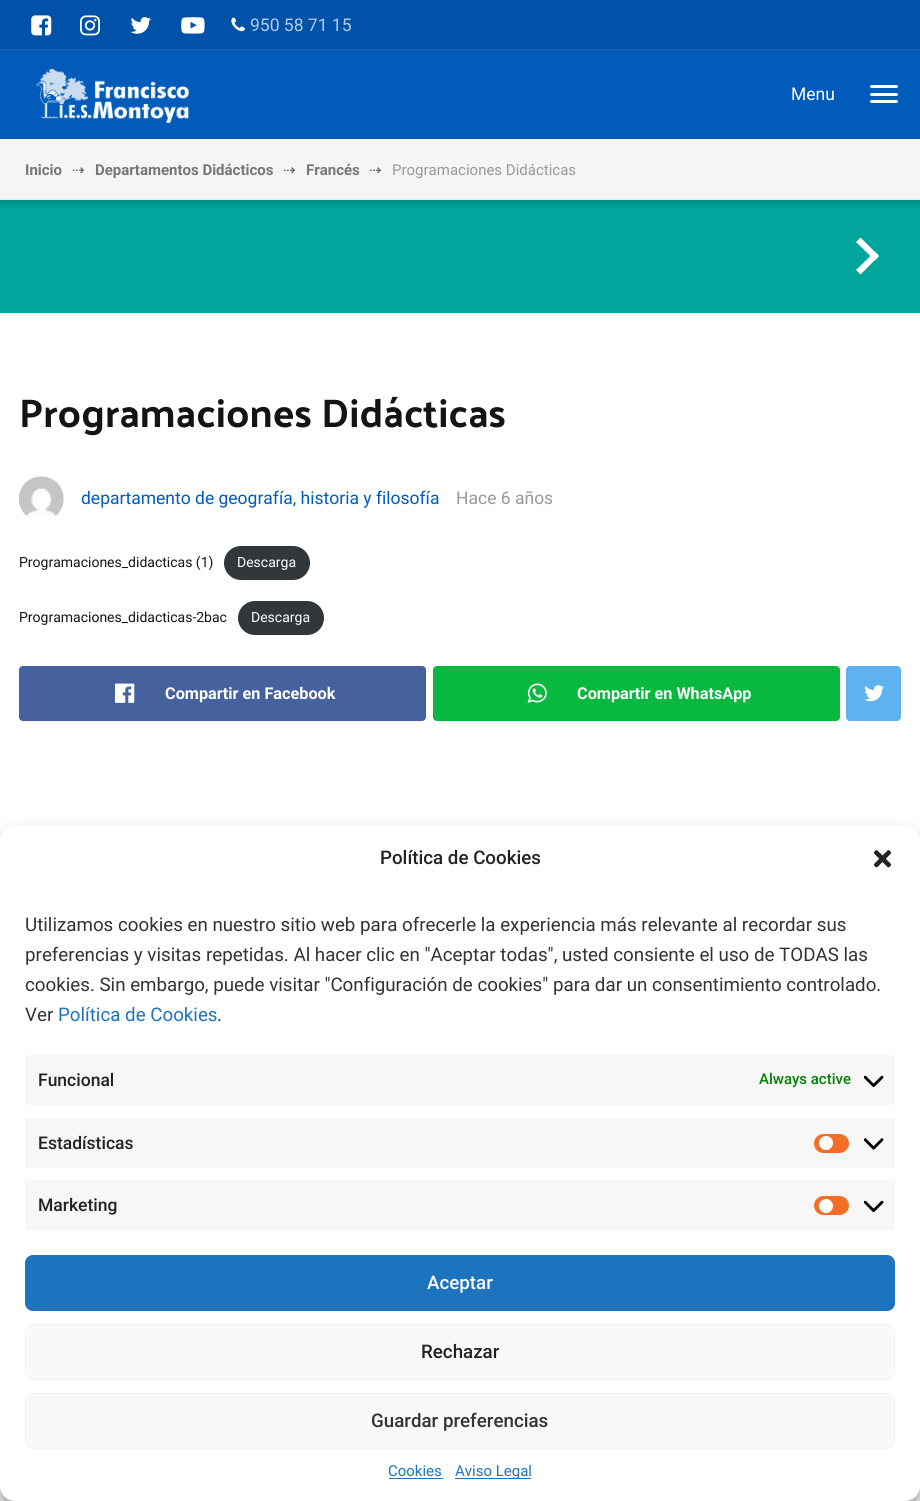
#include <cairo.h>
#include <math.h>
#include <stddef.h>


static void rgb(cairo_t *cr, int r, int g, int b)
{
	cairo_set_source_rgb(cr, r / 255.0, g / 255.0, b / 255.0);
}

static void face(cairo_t *cr, const char *family, double size, int italic, int bold)
{
	cairo_select_font_face(cr, family, italic ? CAIRO_FONT_SLANT_ITALIC : CAIRO_FONT_SLANT_NORMAL,
		bold ? CAIRO_FONT_WEIGHT_BOLD : CAIRO_FONT_WEIGHT_NORMAL);
	cairo_set_font_size(cr, size);
}

static void label(cairo_t *cr, double x, double y, const char *s)
{
	cairo_move_to(cr, x, y);
	cairo_show_text(cr, s);
}

static void rect(cairo_t *cr, double x, double y, double w, double h)
{
	cairo_rectangle(cr, x, y, w, h);
	cairo_fill(cr);
}

static void rrect(cairo_t *cr, double x, double y, double w, double h, double r)
{
	cairo_new_sub_path(cr);
	cairo_arc(cr, x + w - r, y + h - r, r, 0, M_PI / 2);
	cairo_arc(cr, x + r, y + h - r, r, M_PI / 2, M_PI);
	cairo_arc(cr, x + r, y + r, r, M_PI, 1.5 * M_PI);
	cairo_arc(cr, x + w - r, y + r, r, 1.5 * M_PI, 2 * M_PI);
	cairo_close_path(cr);
}

static void soft_shadow(cairo_t *cr, double x, double y, double w, double h, double r, double blur, double alpha)
{
	cairo_push_group_with_content(cr, CAIRO_CONTENT_ALPHA);
	cairo_set_operator(cr, CAIRO_OPERATOR_SOURCE);
	for (int i = 15; i >= -15 && fmin(w, h) + blur * i / 3 > 0; i -= 2) {
		double e = blur * i / 6;
		cairo_set_source_rgba(cr, 0, 0, 0, alpha * erfc((i - 1) / 8.5) / 2);
		rrect(cr, x - e, y - e, w + 2 * e, h + 2 * e, fmax(0, fmin(r + e + blur * .6, fmin(w, h) / 2 + e)));
		cairo_fill(cr);
	}
	cairo_pattern_t *soft = cairo_pop_group(cr);
	cairo_mask(cr, soft);
	cairo_pattern_destroy(soft);
}

static void image(cairo_t *cr, const char *path, double x, double y, double w, double h)
{
	cairo_surface_t *image = cairo_image_surface_create_from_png(path);
	cairo_save(cr);
	cairo_set_source_surface(cr, image, x, y);
	cairo_rectangle(cr, x, y, w, h);
	cairo_fill(cr);
	cairo_restore(cr);
	cairo_surface_destroy(image);
}

static void draw(cairo_t *cr) {
	cairo_pattern_t *gradient;
	rgb(cr, 255, 255, 255);
	cairo_paint(cr);
	rgb(cr, 0, 91, 187);
	rect(cr, 0, 50, 920, 89);
	rgb(cr, 0, 82, 168);
	rect(cr, 0, 0, 920, 49);
	rgb(cr, 26, 99, 177);
	rect(cr, 0, 49, 920, 1);
	image(cr, "image0.png", 31, 15, 21, 21);
	image(cr, "image1.png", 80, 15, 20, 21);
	image(cr, "image2.png", 130, 17, 21, 17);
	image(cr, "image3.png", 181, 17, 24, 17);
	image(cr, "image4.png", 231, 17, 14, 15);
	face(cr, "Roboto", 17.5, 0, 0);
	rgb(cr, 179, 203, 229);
	label(cr, 250, 31, "950 58 71 15");
	image(cr, "image5.png", 36, 68, 153, 55);
	rgb(cr, 255, 255, 255);
	rrect(cr, 870, 85, 28, 3, 1.5);
	cairo_fill(cr);
	label(cr, 791, 100, "Menu");
	rrect(cr, 870, 93, 28, 3, 1.5);
	cairo_fill(cr);
	rrect(cr, 870, 100, 28, 3, 1.5);
	cairo_fill(cr);
	rgb(cr, 245, 245, 245);
	rect(cr, 0, 139, 920, 60);
	rgb(cr, 236, 236, 236);
	rect(cr, 0, 199, 920, 1);
	face(cr, "Roboto", 15, 0, 1);
	rgb(cr, 118, 118, 118);
	label(cr, 25, 175, "Inicio");
	face(cr, "DejaVu Sans", 15, 0, 0);
	rgb(cr, 102, 102, 102);
	label(cr, 72, 175, "⇢");
	face(cr, "Roboto", 15, 0, 1);
	rgb(cr, 118, 118, 118);
	label(cr, 95, 175, "Departamentos Didácticos");
	face(cr, "DejaVu Sans", 15, 0, 0);
	rgb(cr, 102, 102, 102);
	label(cr, 283, 175, "⇢");
	face(cr, "Roboto", 15, 0, 1);
	rgb(cr, 118, 118, 118);
	label(cr, 306, 175, "Francés");
	face(cr, "DejaVu Sans", 15, 0, 0);
	rgb(cr, 102, 102, 102);
	label(cr, 369, 175, "⇢");
	face(cr, "Roboto", 15, 0, 0);
	rgb(cr, 153, 153, 153);
	label(cr, 392, 175, "Programaciones Didácticas");
	gradient = cairo_pattern_create_linear(460, 200, 460, 313);
	cairo_pattern_add_color_stop_rgba(gradient, 0, 0, 0.553, 0.518, 1);
	cairo_pattern_add_color_stop_rgba(gradient, 0.08, 0, 0.651, 0.612, 1);
	cairo_pattern_add_color_stop_rgba(gradient, 1, 0, 0.651, 0.612, 1);
	cairo_set_source(cr, gradient);
	cairo_pattern_destroy(gradient);
	rect(cr, 0, 200, 920, 113);
	rgb(cr, 255, 255, 255);
	cairo_new_path(cr);
	cairo_move_to(cr, 860.5, 237.5);
	cairo_line_to(cr, 879, 256);
	cairo_line_to(cr, 875, 260.5);
	cairo_line_to(cr, 856, 242);
	cairo_close_path(cr);
	cairo_fill(cr);
	cairo_new_path(cr);
	cairo_move_to(cr, 875, 251.5);
	cairo_line_to(cr, 879, 256);
	cairo_line_to(cr, 860.5, 274.5);
	cairo_line_to(cr, 856, 270);
	cairo_close_path(cr);
	cairo_fill(cr);
	face(cr, "Palanquin", 40, 0, 1);
	rgb(cr, 18, 20, 22);
	label(cr, 19, 427, "Programaciones Didácticas");
	image(cr, "image6.png", 19, 476, 45, 41);
	face(cr, "Roboto", 17.5, 0, 0);
	rgb(cr, 0, 91, 187);
	label(cr, 81, 504, "departamento de geografía, historia y filosofía");
	rgb(cr, 153, 153, 153);
	label(cr, 456, 504, "Hace 6 años");
	face(cr, "Roboto", 14, 0, 0);
	rgb(cr, 18, 20, 22);
	label(cr, 19, 567, "Programaciones_didacticas (1)");
	rgb(cr, 50, 55, 60);
	rrect(cr, 224, 546, 86, 34, 17);
	cairo_fill(cr);
	rgb(cr, 255, 255, 255);
	label(cr, 237, 567, "Descarga");
	rgb(cr, 18, 20, 22);
	label(cr, 19, 622, "Programaciones_didacticas-2bac");
	rgb(cr, 50, 55, 60);
	rrect(cr, 238, 601, 86, 34, 17);
	cairo_fill(cr);
	rgb(cr, 255, 255, 255);
	label(cr, 251, 622, "Descarga");
	rgb(cr, 69, 98, 159);
	rrect(cr, 19, 666, 407, 55, 4);
	cairo_fill(cr);
	image(cr, "image7.png", 115, 683, 20, 20);
	face(cr, "Roboto", 16.25, 0, 1);
	rgb(cr, 255, 255, 255);
	label(cr, 165, 699, "Compartir en Facebook");
	rgb(cr, 9, 184, 62);
	rrect(cr, 433, 666, 407, 55, 4);
	cairo_fill(cr);
	image(cr, "image8.png", 527, 683, 20, 20);
	rgb(cr, 255, 255, 255);
	label(cr, 577, 699, "Compartir en WhatsApp");
	rgb(cr, 94, 178, 239);
	rrect(cr, 846, 666, 55, 55, 4);
	cairo_fill(cr);
	image(cr, "image9.png", 864, 685, 20, 17);
	rgb(cr, 0, 0, 0);
	soft_shadow(cr, 0, 834, 920, 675, 15, 4, 0.23);
	soft_shadow(cr, 0, 839, 920, 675, 15, 12.5, 0.19);
	rgb(cr, 255, 255, 255);
	rrect(cr, 0, 826, 920, 675, 15);
	cairo_fill(cr);
	face(cr, "Roboto Medium", 18.75, 0, 0);
	rgb(cr, 34, 34, 34);
	label(cr, 380, 864, "Política de Cookies");
	image(cr, "image10.png", 873, 850, 19, 18);
	face(cr, "Roboto", 18.75, 0, 0);
	rgb(cr, 51, 51, 51);
	label(cr, 25, 931, "Utilizamos cookies en nuestro sitio web para ofrecerle la experiencia más relevante al recordar sus");
	label(cr, 25, 961, "preferencias y visitas repetidas. Al hacer clic en \"Aceptar todas\", usted consiente el uso de TODAS las");
	label(cr, 25, 991, "cookies. Sin embargo, puede visitar \"Configuración de cookies\" para dar un consentimiento controlado.");
	label(cr, 25, 1021, "Ver");
	rgb(cr, 30, 115, 190);
	label(cr, 58, 1021, "Política de Cookies");
	rgb(cr, 51, 51, 51);
	label(cr, 217, 1021, ".");
	rgb(cr, 247, 247, 247);
	rect(cr, 25, 1055, 870, 50);
	face(cr, "Roboto Medium", 17.5, 0, 0);
	rgb(cr, 34, 34, 34);
	label(cr, 38, 1086, "Funcional");
	face(cr, "Roboto Medium", 15, 0, 0);
	rgb(cr, 0, 128, 0);
	label(cr, 759, 1084, "Always active");
	image(cr, "image11.png", 864, 1075, 20, 12);
	rgb(cr, 247, 247, 247);
	rect(cr, 25, 1118, 870, 50);
	face(cr, "Roboto Medium", 17.5, 0, 0);
	rgb(cr, 34, 34, 34);
	label(cr, 38, 1149, "Estadísticas");
	rgb(cr, 245, 110, 40);
	rrect(cr, 814, 1134, 35, 19, 9.5);
	cairo_fill(cr);
	rgb(cr, 255, 255, 255);
	cairo_arc(cr, 826, 1143, 7, 0, 2 * M_PI);
	cairo_fill(cr);
	image(cr, "image12.png", 864, 1138, 20, 12);
	rgb(cr, 247, 247, 247);
	rect(cr, 25, 1180, 870, 50);
	rgb(cr, 34, 34, 34);
	label(cr, 38, 1211, "Marketing");
	rgb(cr, 245, 110, 40);
	rrect(cr, 814, 1196, 35, 19, 9.5);
	cairo_fill(cr);
	rgb(cr, 255, 255, 255);
	cairo_arc(cr, 826, 1206, 7, 0, 2 * M_PI);
	cairo_fill(cr);
	image(cr, "image11.png", 864, 1200, 20, 12);
	rgb(cr, 30, 115, 190);
	rrect(cr, 25.5, 1255.5, 869, 55, 7.5);
	cairo_fill_preserve(cr);
	cairo_set_line_width(cr, 1);
	cairo_stroke(cr);
	face(cr, "Roboto Medium", 18.75, 0, 0);
	rgb(cr, 255, 255, 255);
	label(cr, 427, 1289, "Aceptar");
	rgb(cr, 249, 249, 249);
	rrect(cr, 25.5, 1324.5, 869, 55, 7.5);
	cairo_fill_preserve(cr);
	rgb(cr, 242, 242, 242);
	cairo_stroke(cr);
	rgb(cr, 34, 34, 34);
	label(cr, 421, 1358, "Rechazar");
	rgb(cr, 249, 249, 249);
	rrect(cr, 25.5, 1393.5, 869, 55, 7.5);
	cairo_fill_preserve(cr);
	rgb(cr, 242, 242, 242);
	cairo_stroke(cr);
	rgb(cr, 51, 51, 51);
	label(cr, 371, 1427, "Guardar preferencias");
	face(cr, "Roboto", 15, 0, 0);
	rgb(cr, 30, 115, 190);
	label(cr, 388, 1476, "Cookies");
	rect(cr, 389, 1478, 54, 1);
	rect(cr, 455, 1478, 76, 1);
	label(cr, 455, 1476, "Aviso Legal");
}

int main(void) {
	cairo_surface_t *surface = cairo_image_surface_create(CAIRO_FORMAT_RGB24, 920, 1501);
	cairo_t *cr = cairo_create(surface);
	cairo_font_options_t *options = cairo_font_options_create();
	cairo_font_options_set_hint_metrics(options, CAIRO_HINT_METRICS_OFF);
	cairo_font_options_set_hint_style(options, CAIRO_HINT_STYLE_NONE);
	cairo_set_font_options(cr, options);
	cairo_set_miter_limit(cr, 4);
	draw(cr);
	cairo_surface_write_to_png(surface, "render.png");
	cairo_font_options_destroy(options);
	cairo_destroy(cr);
	cairo_surface_destroy(surface);
	return 0;
}
